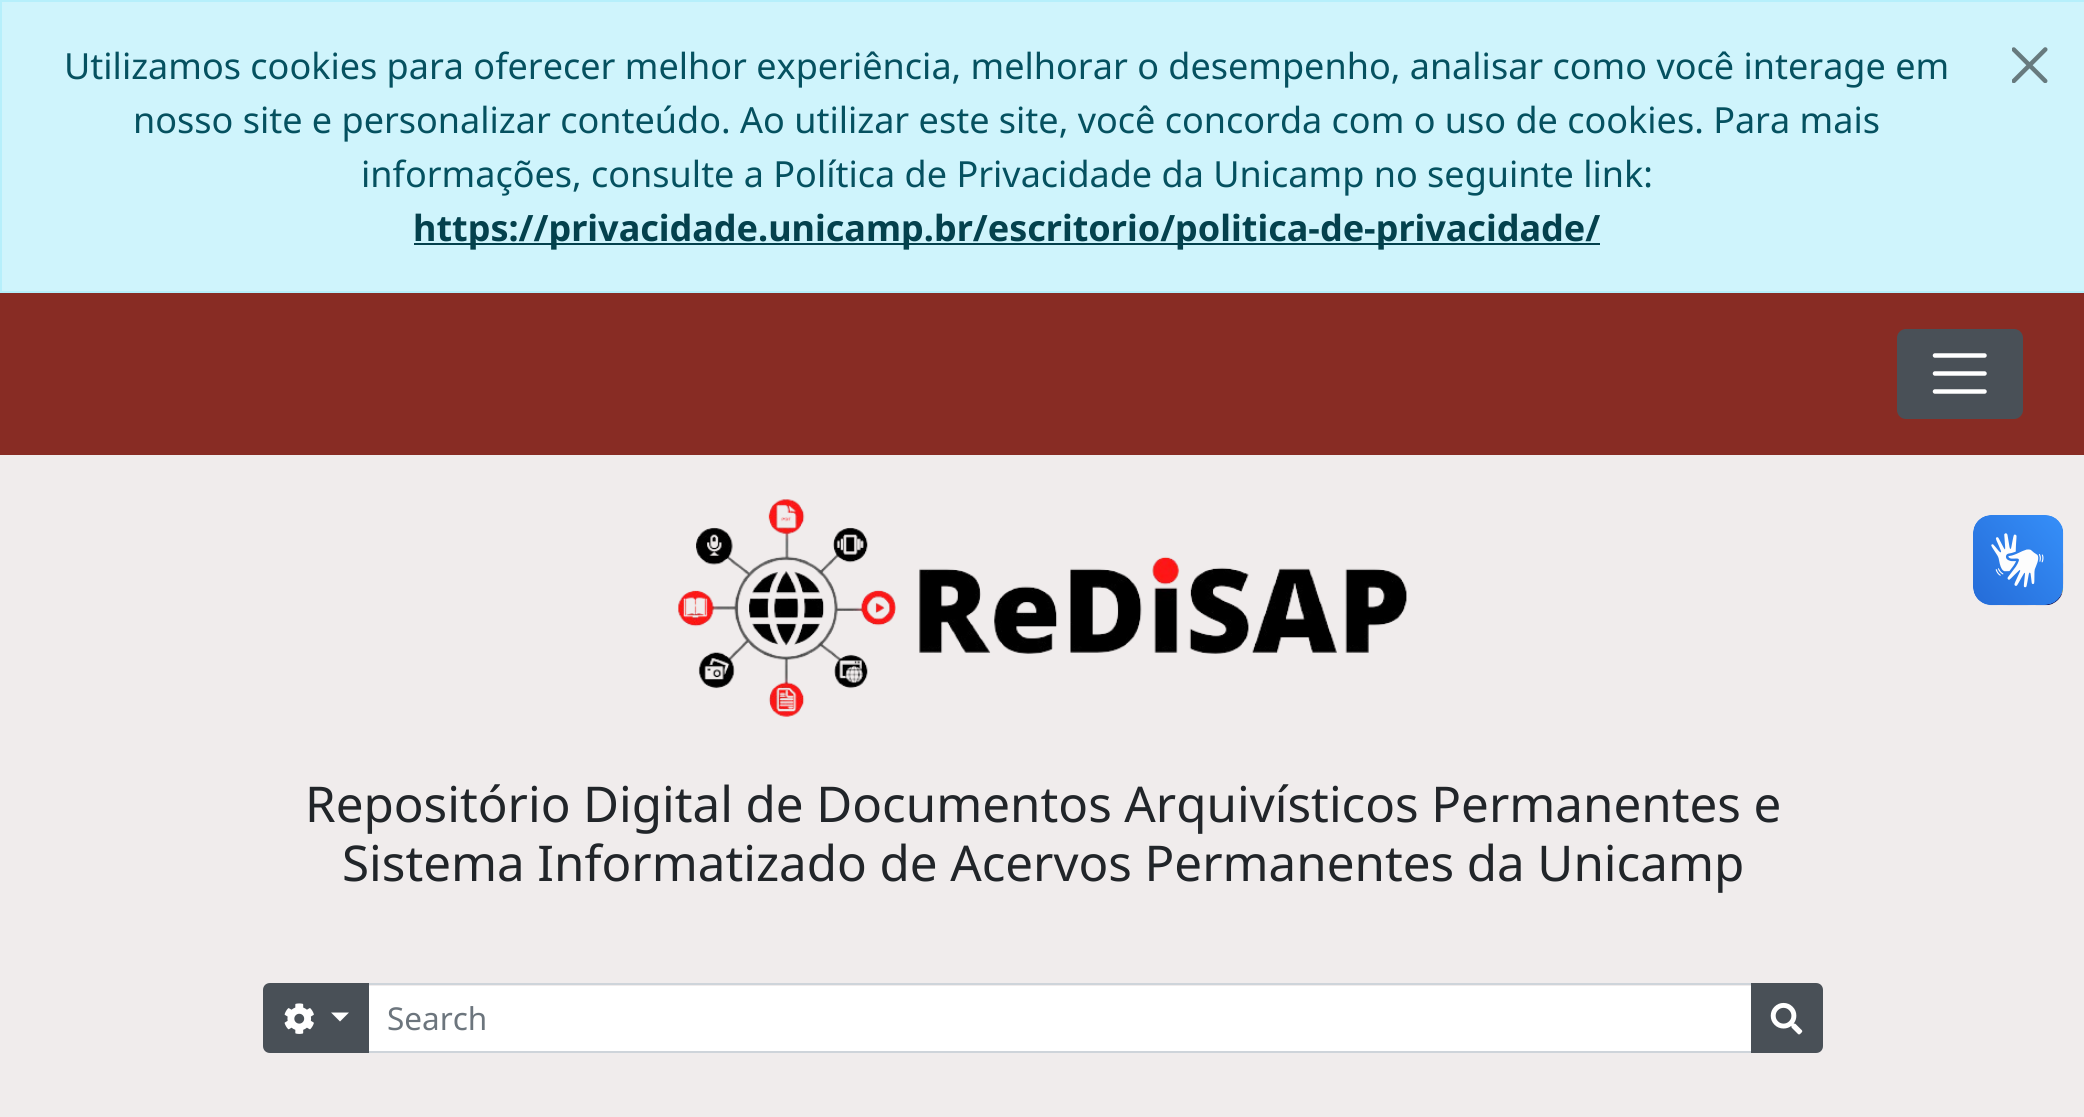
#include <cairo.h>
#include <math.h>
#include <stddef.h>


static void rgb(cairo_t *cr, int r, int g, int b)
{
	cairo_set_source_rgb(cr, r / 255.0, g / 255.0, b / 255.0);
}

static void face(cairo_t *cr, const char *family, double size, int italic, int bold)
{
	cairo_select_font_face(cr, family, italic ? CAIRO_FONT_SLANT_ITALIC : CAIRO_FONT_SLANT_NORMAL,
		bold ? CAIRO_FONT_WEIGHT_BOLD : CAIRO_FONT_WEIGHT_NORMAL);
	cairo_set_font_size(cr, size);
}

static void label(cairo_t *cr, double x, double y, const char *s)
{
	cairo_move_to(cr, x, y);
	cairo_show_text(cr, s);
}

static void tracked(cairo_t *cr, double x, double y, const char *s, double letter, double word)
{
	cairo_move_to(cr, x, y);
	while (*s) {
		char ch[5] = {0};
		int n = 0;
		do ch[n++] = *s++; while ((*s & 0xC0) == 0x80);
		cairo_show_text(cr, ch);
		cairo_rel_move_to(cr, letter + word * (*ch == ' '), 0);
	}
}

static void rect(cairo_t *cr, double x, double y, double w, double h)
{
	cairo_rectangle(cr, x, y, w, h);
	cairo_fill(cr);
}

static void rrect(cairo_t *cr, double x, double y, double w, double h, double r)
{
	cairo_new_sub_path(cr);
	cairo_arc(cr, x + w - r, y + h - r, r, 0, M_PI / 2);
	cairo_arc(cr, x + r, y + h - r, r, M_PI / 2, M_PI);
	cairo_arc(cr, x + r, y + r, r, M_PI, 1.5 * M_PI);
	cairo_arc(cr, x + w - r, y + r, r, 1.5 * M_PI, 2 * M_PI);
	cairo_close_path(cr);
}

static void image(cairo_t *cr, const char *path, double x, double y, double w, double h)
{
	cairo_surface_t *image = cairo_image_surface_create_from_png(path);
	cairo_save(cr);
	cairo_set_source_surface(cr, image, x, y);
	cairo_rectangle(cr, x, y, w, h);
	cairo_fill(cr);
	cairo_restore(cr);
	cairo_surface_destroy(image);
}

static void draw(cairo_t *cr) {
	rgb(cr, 240, 236, 236);
	cairo_paint(cr);
	rgb(cr, 207, 244, 252);
	cairo_rectangle(cr, 1, 1, 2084, 291);
	cairo_fill_preserve(cr);
	rgb(cr, 182, 239, 251);
	cairo_stroke(cr);
	face(cr, "Noto Sans", 36, 0, 0);
	rgb(cr, 5, 81, 96);
	label(cr, 64, 79, "Utilizamos cookies para oferecer melhor experiência, melhorar o desempenho, analisar como você interage em");
	label(cr, 133, 133, "nosso site e personalizar conteúdo. Ao utilizar este site, você concorda com o uso de cookies. Para mais");
	label(cr, 361, 187, "informações, consulte a Política de Privacidade da Unicamp no seguinte link:");
	rgb(cr, 4, 65, 77);
	rect(cr, 414, 243, 1186, 2);
	face(cr, "Noto Sans", 36, 0, 1);
	label(cr, 413, 241, "https://privacidade.unicamp.br/escritorio/politica-de-privacidade/");
	image(cr, "image0.png", 2012, 47, 36, 36);
	image(cr, "image1.png", 1973, 515, 91, 91);
	image(cr, "image2.png", 1973, 515, 90, 90);
	rgb(cr, 136, 44, 36);
	rect(cr, 0, 293, 2084, 162);
	rgb(cr, 73, 80, 87);
	rrect(cr, 1898, 330, 124, 88, 8);
	cairo_fill_preserve(cr);
	cairo_stroke(cr);
	cairo_new_path(cr);
	cairo_move_to(cr, 1935, 355.5);
	cairo_line_to(cr, 1984.5, 355.5);
	cairo_move_to(cr, 1935, 373.5);
	cairo_line_to(cr, 1984.5, 373.5);
	cairo_move_to(cr, 1935, 391.5);
	cairo_line_to(cr, 1984.5, 391.5);
	rgb(cr, 255, 255, 255);
	cairo_set_line_width(cr, 4.5);
	cairo_set_line_cap(cr, CAIRO_LINE_CAP_ROUND);
	cairo_stroke(cr);
	image(cr, "image3.png", 678, 499, 729, 218);
	face(cr, "Noto Sans", 49.3, 0, 0);
	rgb(cr, 33, 37, 41);
	tracked(cr, 305, 822, "Repositório Digital de Documentos Arquivísticos Permanentes e", 0, -0.25);
	tracked(cr, 342, 881, "Sistema Informatizado de Acervos Permanentes da Unicamp", 0, -0.25);
	rgb(cr, 255, 255, 255);
	rect(cr, 369, 986, 1382, 65);
	cairo_rectangle(cr, 368, 984, 1384, 68);
	rgb(cr, 206, 212, 218);
	cairo_set_line_width(cr, 2);
	cairo_set_line_cap(cr, CAIRO_LINE_CAP_BUTT);
	cairo_stroke(cr);
	rgb(cr, 73, 80, 87);
	cairo_new_path(cr);
	cairo_move_to(cr, 270, 984);
	cairo_line_to(cr, 368, 984);
	cairo_line_to(cr, 368, 1052);
	cairo_line_to(cr, 270, 1052);
	cairo_curve_to(cr, 266.5, 1052, 264, 1049.5, 264, 1046);
	cairo_line_to(cr, 264, 990);
	cairo_curve_to(cr, 264, 986.5, 266.5, 984, 270, 984);
	cairo_close_path(cr);
	cairo_fill_preserve(cr);
	cairo_stroke(cr);
	image(cr, "image4.png", 284, 1003, 30, 31);
	rgb(cr, 255, 255, 255);
	cairo_new_path(cr);
	cairo_move_to(cr, 331, 1012.5);
	cairo_line_to(cr, 349, 1012.5);
	cairo_line_to(cr, 340, 1021.5);
	cairo_close_path(cr);
	cairo_fill(cr);
	face(cr, "Noto Sans", 31.5, 0, 0);
	rgb(cr, 108, 117, 125);
	label(cr, 387, 1030, "Search");
	rgb(cr, 73, 80, 87);
	cairo_new_path(cr);
	cairo_move_to(cr, 1752, 984);
	cairo_line_to(cr, 1816, 984);
	cairo_curve_to(cr, 1819.5, 984, 1822, 986.5, 1822, 990);
	cairo_line_to(cr, 1822, 1046);
	cairo_curve_to(cr, 1822, 1049.5, 1819.5, 1052, 1816, 1052);
	cairo_line_to(cr, 1752, 1052);
	cairo_close_path(cr);
	cairo_fill_preserve(cr);
	cairo_stroke(cr);
	image(cr, "image5.png", 1770, 1002, 33, 33);
}

int main(void) {
	cairo_surface_t *surface = cairo_image_surface_create(CAIRO_FORMAT_RGB24, 2084, 1117);
	cairo_t *cr = cairo_create(surface);
	cairo_font_options_t *options = cairo_font_options_create();
	cairo_font_options_set_hint_metrics(options, CAIRO_HINT_METRICS_OFF);
	cairo_font_options_set_hint_style(options, CAIRO_HINT_STYLE_NONE);
	cairo_set_font_options(cr, options);
	cairo_set_miter_limit(cr, 4);
	draw(cr);
	cairo_surface_write_to_png(surface, "render.png");
	cairo_font_options_destroy(options);
	cairo_destroy(cr);
	cairo_surface_destroy(surface);
	return 0;
}
